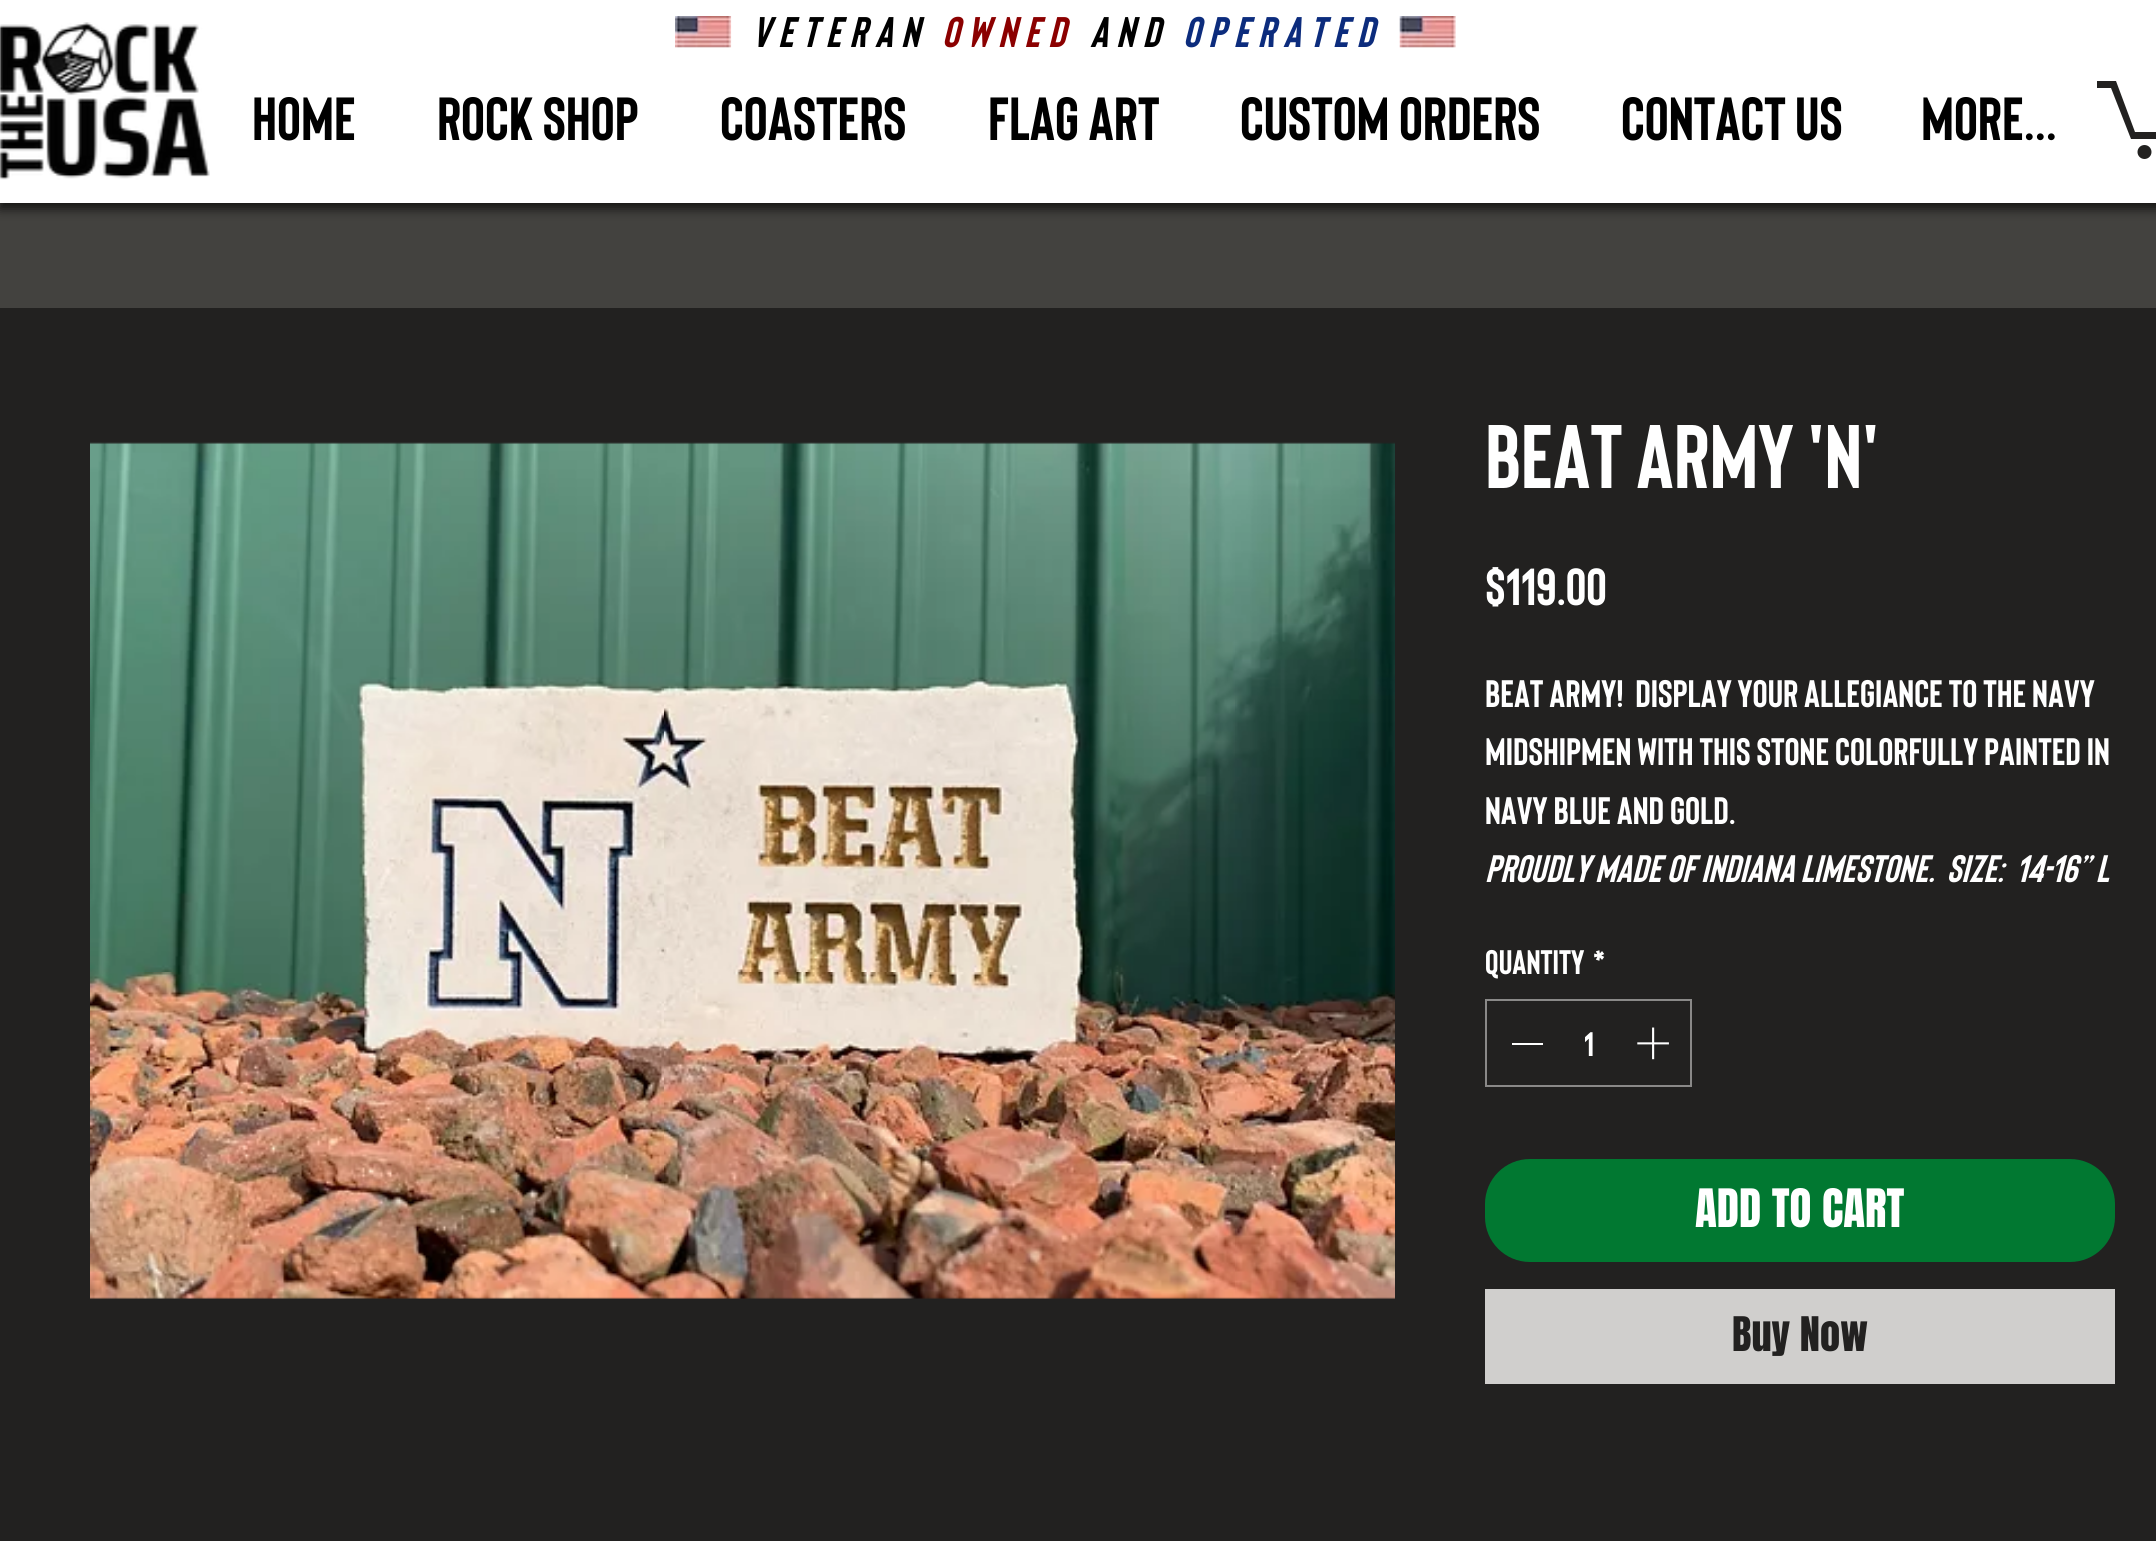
#include <cairo.h>
#include <math.h>
#include <stddef.h>


static void rgb(cairo_t *cr, int r, int g, int b)
{
	cairo_set_source_rgb(cr, r / 255.0, g / 255.0, b / 255.0);
}

static void face(cairo_t *cr, const char *family, double size, int italic, int bold)
{
	cairo_select_font_face(cr, family, italic ? CAIRO_FONT_SLANT_ITALIC : CAIRO_FONT_SLANT_NORMAL,
		bold ? CAIRO_FONT_WEIGHT_BOLD : CAIRO_FONT_WEIGHT_NORMAL);
	cairo_set_font_size(cr, size);
}

static void label(cairo_t *cr, double x, double y, const char *s)
{
	cairo_move_to(cr, x, y);
	cairo_show_text(cr, s);
}

static void tracked(cairo_t *cr, double x, double y, const char *s, double letter, double word)
{
	cairo_move_to(cr, x, y);
	while (*s) {
		char ch[5] = {0};
		int n = 0;
		do ch[n++] = *s++; while ((*s & 0xC0) == 0x80);
		cairo_show_text(cr, ch);
		cairo_rel_move_to(cr, letter + word * (*ch == ' '), 0);
	}
}

static void rect(cairo_t *cr, double x, double y, double w, double h)
{
	cairo_rectangle(cr, x, y, w, h);
	cairo_fill(cr);
}

static void rrect(cairo_t *cr, double x, double y, double w, double h, double r)
{
	cairo_new_sub_path(cr);
	cairo_arc(cr, x + w - r, y + h - r, r, 0, M_PI / 2);
	cairo_arc(cr, x + r, y + h - r, r, M_PI / 2, M_PI);
	cairo_arc(cr, x + r, y + r, r, M_PI, 1.5 * M_PI);
	cairo_arc(cr, x + w - r, y + r, r, 1.5 * M_PI, 2 * M_PI);
	cairo_close_path(cr);
}

static void soft_shadow(cairo_t *cr, double x, double y, double w, double h, double r, double blur, double alpha)
{
	cairo_push_group_with_content(cr, CAIRO_CONTENT_ALPHA);
	cairo_set_operator(cr, CAIRO_OPERATOR_SOURCE);
	for (int i = 15; i >= -15 && fmin(w, h) + blur * i / 3 > 0; i -= 2) {
		double e = blur * i / 6;
		cairo_set_source_rgba(cr, 0, 0, 0, alpha * erfc((i - 1) / 8.5) / 2);
		rrect(cr, x - e, y - e, w + 2 * e, h + 2 * e, fmax(0, fmin(r + e + blur * .6, fmin(w, h) / 2 + e)));
		cairo_fill(cr);
	}
	cairo_pattern_t *soft = cairo_pop_group(cr);
	cairo_mask(cr, soft);
	cairo_pattern_destroy(soft);
}

static void image(cairo_t *cr, const char *path, double x, double y, double w, double h)
{
	cairo_surface_t *image = cairo_image_surface_create_from_png(path);
	cairo_save(cr);
	cairo_set_source_surface(cr, image, x, y);
	cairo_rectangle(cr, x, y, w, h);
	cairo_fill(cr);
	cairo_restore(cr);
	cairo_surface_destroy(image);
}

static void draw(cairo_t *cr) {
	rgb(cr, 67, 66, 63);
	cairo_paint(cr);
	rgb(cr, 0, 0, 0);
	soft_shadow(cr, 0, 7, 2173, 202, 0, 5.5, 0.7);
	rgb(cr, 255, 255, 255);
	rect(cr, 0, 0, 2156, 203);
	image(cr, "image0.png", 0, 22, 210, 158);
	image(cr, "image1.png", 675, 16, 57, 32);
	face(cr, "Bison", 42.75, 1, 1);
	rgb(cr, 0, 0, 0);
	tracked(cr, 752, 47, "VETERAN", 8.5, 0);
	rgb(cr, 139, 0, 0);
	tracked(cr, 942, 47, "OWNED", 8.5, 0);
	rgb(cr, 0, 0, 0);
	tracked(cr, 1090, 47, "AND", 8.5, 0);
	rgb(cr, 12, 44, 125);
	tracked(cr, 1183, 47, "OPERATED", 8.5, 0);
	image(cr, "image2.png", 1399, 16, 57, 32);
	rgb(cr, 34, 33, 32);
	cairo_new_path(cr);
	cairo_move_to(cr, 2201, 101);
	cairo_line_to(cr, 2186, 139);
	cairo_line_to(cr, 2131, 139);
	cairo_line_to(cr, 2111, 88);
	cairo_line_to(cr, 2097, 88);
	cairo_line_to(cr, 2097, 81);
	cairo_line_to(cr, 2116, 81);
	cairo_line_to(cr, 2135, 132);
	cairo_line_to(cr, 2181, 132);
	cairo_line_to(cr, 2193, 101);
	cairo_fill(cr);
	cairo_arc(cr, 2144.5, 152, 7, 0, 2 * M_PI);
	cairo_fill(cr);
	face(cr, "Bison", 60.75, 0, 1);
	rgb(cr, 0, 0, 0);
	label(cr, 252, 140, "HOME");
	label(cr, 437, 140, "ROCK SHOP");
	label(cr, 720, 140, "COASTERS");
	label(cr, 988, 140, "FLAG ART");
	label(cr, 1240, 140, "CUSTOM ORDERS");
	label(cr, 1621, 140, "CONTACT US");
	label(cr, 1921, 140, "More...");
	rgb(cr, 34, 33, 32);
	rect(cr, 0, 308, 2156, 1233);
	image(cr, "image3.png", 90, 442, 1305, 857);
	face(cr, "Bison", 90, 0, 1);
	rgb(cr, 255, 255, 255);
	label(cr, 1485, 488, "Beat Army 'N'");
	face(cr, "Bison", 52, 0, 1);
	label(cr, 1485, 605, "$119.00");
	face(cr, "Bison", 38.25, 0, 1);
	label(cr, 1485, 707, "BEAT ARMY!  Display your allegiance to the Navy");
	label(cr, 1485, 765, "Midshipmen with this stone colorfully painted in");
	label(cr, 1485, 824, "Navy Blue and Gold.");
	face(cr, "Bison", 38.25, 1, 1);
	label(cr, 1485, 882, "Proudly made of Indiana Limestone.  Size:  14-16” L");
	face(cr, "Bison", 34, 0, 1);
	label(cr, 1485, 974, "Quantity");
	label(cr, 1593, 974, "*");
	cairo_rectangle(cr, 1486, 1000, 205, 86);
	rgb(cr, 138, 137, 136);
	cairo_stroke(cr);
	rgb(cr, 255, 255, 255);
	rect(cr, 1512, 1043, 31, 2);
	label(cr, 1584, 1056, "1");
	image(cr, "image4.png", 1637, 1027, 32, 33);
	rgb(cr, 1, 120, 49);
	rrect(cr, 1485, 1159, 630, 103, 45);
	cairo_fill(cr);
	face(cr, "Anton", 45, 0, 0);
	rgb(cr, 255, 255, 255);
	label(cr, 1695, 1227, "ADD TO CART");
	rgb(cr, 208, 207, 205);
	rect(cr, 1485, 1289, 630, 95);
	face(cr, "Anton", 40.5, 0, 0);
	rgb(cr, 34, 33, 32);
	label(cr, 1732, 1351, "Buy Now");
}

int main(void) {
	cairo_surface_t *surface = cairo_image_surface_create(CAIRO_FORMAT_RGB24, 2156, 1541);
	cairo_t *cr = cairo_create(surface);
	cairo_font_options_t *options = cairo_font_options_create();
	cairo_font_options_set_hint_metrics(options, CAIRO_HINT_METRICS_OFF);
	cairo_font_options_set_hint_style(options, CAIRO_HINT_STYLE_NONE);
	cairo_set_font_options(cr, options);
	cairo_set_miter_limit(cr, 4);
	draw(cr);
	cairo_surface_write_to_png(surface, "render.png");
	cairo_font_options_destroy(options);
	cairo_destroy(cr);
	cairo_surface_destroy(surface);
	return 0;
}
